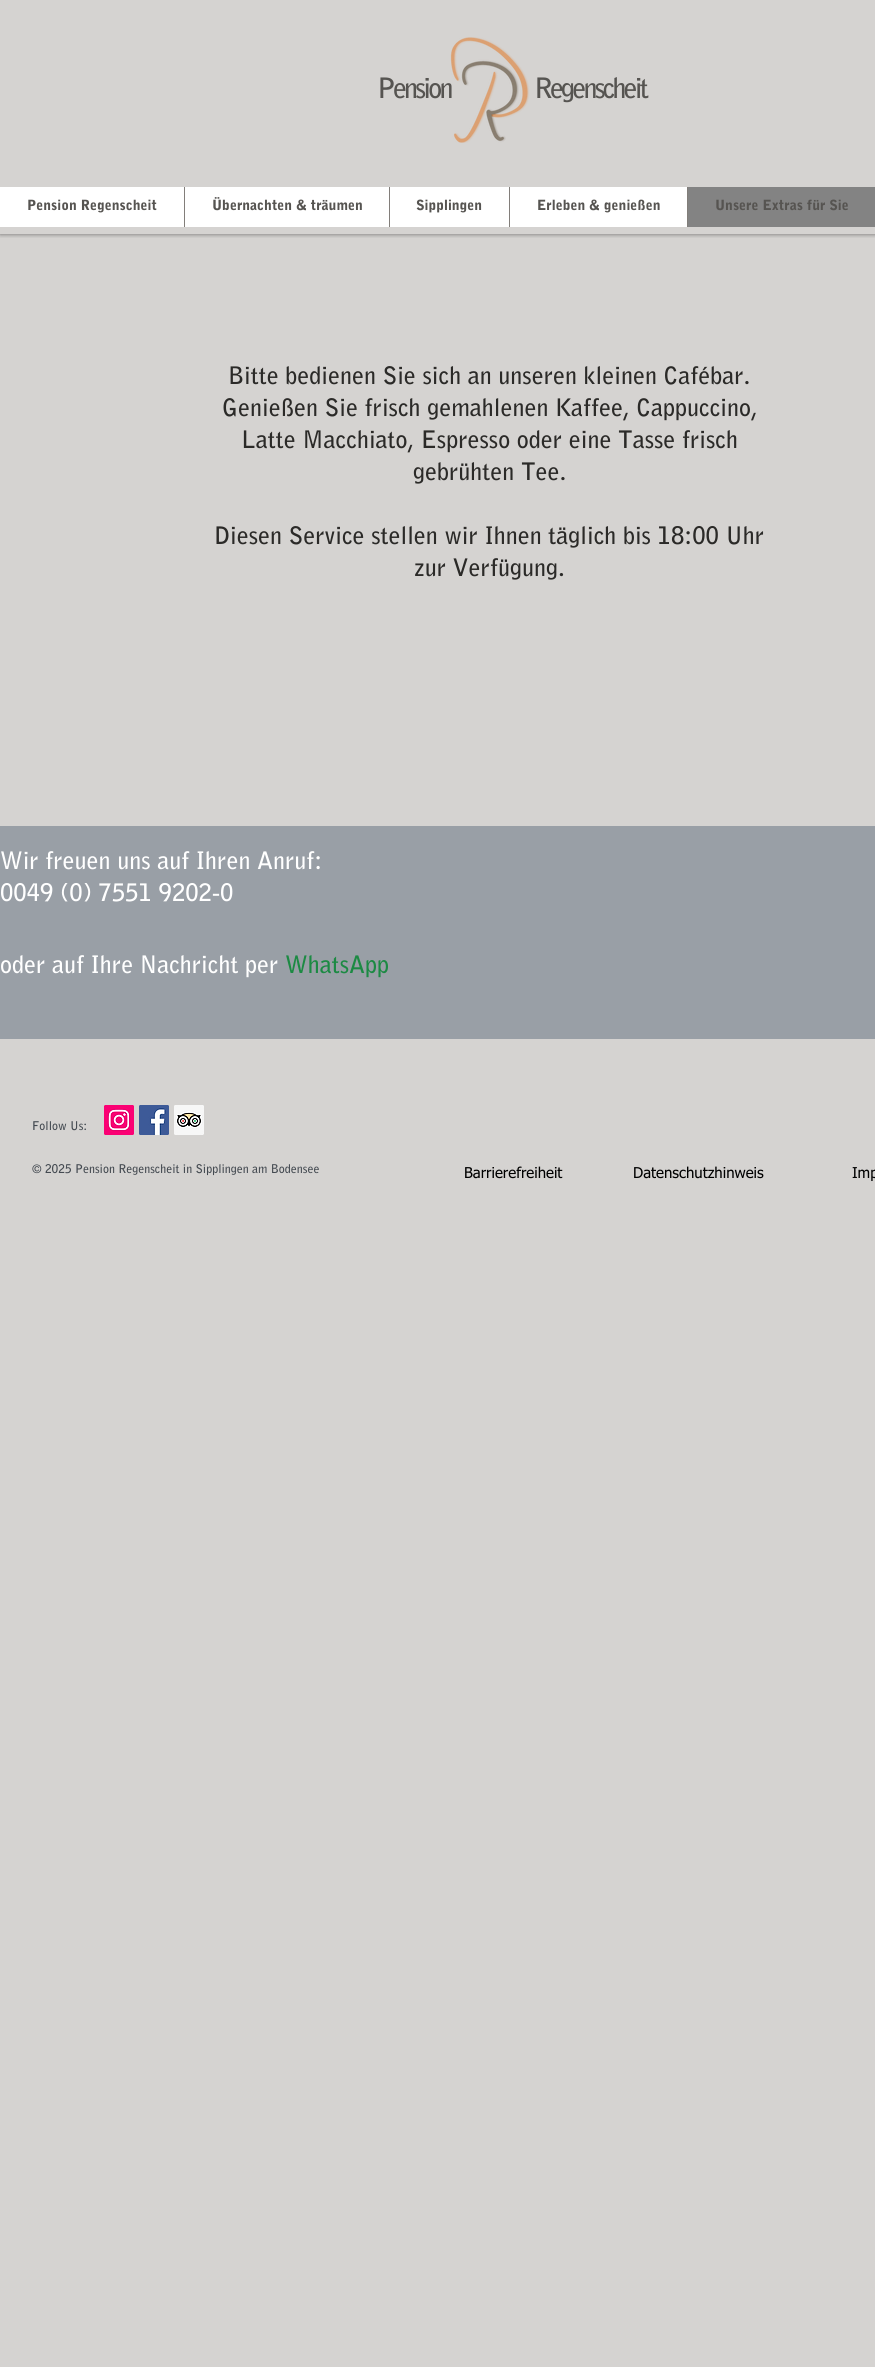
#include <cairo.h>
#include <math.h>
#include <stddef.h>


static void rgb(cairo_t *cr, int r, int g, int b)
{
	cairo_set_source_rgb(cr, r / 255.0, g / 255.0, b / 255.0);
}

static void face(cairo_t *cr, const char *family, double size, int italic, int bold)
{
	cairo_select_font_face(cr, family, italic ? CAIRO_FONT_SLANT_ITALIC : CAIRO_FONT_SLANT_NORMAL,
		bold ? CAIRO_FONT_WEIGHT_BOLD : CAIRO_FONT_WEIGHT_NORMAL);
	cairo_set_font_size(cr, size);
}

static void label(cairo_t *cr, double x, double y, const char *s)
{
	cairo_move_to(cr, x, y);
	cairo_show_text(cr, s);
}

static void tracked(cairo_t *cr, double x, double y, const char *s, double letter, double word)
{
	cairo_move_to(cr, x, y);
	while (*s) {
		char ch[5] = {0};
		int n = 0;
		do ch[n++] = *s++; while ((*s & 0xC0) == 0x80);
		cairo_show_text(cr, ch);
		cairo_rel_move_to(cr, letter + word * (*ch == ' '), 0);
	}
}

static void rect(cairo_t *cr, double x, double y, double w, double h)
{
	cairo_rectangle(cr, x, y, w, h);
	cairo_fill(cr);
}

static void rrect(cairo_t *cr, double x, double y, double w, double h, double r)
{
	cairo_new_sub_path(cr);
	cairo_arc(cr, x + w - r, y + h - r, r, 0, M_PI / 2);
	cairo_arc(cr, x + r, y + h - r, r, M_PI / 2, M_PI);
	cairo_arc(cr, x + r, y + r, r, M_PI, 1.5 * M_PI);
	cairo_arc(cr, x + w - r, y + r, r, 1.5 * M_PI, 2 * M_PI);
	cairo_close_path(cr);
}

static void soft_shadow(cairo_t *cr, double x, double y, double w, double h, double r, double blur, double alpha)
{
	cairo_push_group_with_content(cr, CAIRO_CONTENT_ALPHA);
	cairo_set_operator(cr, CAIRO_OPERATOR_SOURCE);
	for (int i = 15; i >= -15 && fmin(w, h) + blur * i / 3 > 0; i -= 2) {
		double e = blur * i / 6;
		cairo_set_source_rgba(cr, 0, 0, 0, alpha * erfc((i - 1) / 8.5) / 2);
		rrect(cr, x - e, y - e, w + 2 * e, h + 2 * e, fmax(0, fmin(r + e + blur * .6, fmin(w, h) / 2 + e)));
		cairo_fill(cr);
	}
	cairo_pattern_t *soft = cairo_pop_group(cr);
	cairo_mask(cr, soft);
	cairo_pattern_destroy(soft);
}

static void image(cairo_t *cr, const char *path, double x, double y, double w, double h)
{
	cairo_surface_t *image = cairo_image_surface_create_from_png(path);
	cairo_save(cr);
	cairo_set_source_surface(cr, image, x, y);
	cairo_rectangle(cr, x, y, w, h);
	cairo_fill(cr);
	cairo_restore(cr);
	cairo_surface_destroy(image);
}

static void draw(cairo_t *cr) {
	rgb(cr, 213, 211, 209);
	cairo_paint(cr);
	cairo_save(cr);
	cairo_rectangle(cr, 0, 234, 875, 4);
	cairo_clip(cr);
	rgb(cr, 0, 0, 0);
	soft_shadow(cr, 0, 0, 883, 234, 0, 2.5, 0.5);
	cairo_restore(cr);
	face(cr, "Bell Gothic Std", 28, 0, 1);
	rgb(cr, 86, 84, 81);
	tracked(cr, 377, 98, "Pension                 Regenscheit", -2.8, 0);
	image(cr, "image0.png", 450, 37, 80, 106);
	rgb(cr, 255, 255, 255);
	rect(cr, 0, 187, 687, 40);
	face(cr, "Bell Gothic Std Black", 14, 0, 0);
	rgb(cr, 86, 84, 81);
	label(cr, 27, 210, "Pension Regenscheit");
	rgb(cr, 130, 126, 122);
	rect(cr, 184, 187, 1, 40);
	rgb(cr, 86, 84, 81);
	label(cr, 212, 210, "Übernachten & träumen");
	rgb(cr, 130, 126, 122);
	rect(cr, 389, 187, 1, 40);
	rgb(cr, 86, 84, 81);
	label(cr, 416, 210, "Sipplingen");
	rgb(cr, 130, 126, 122);
	rect(cr, 509, 187, 1, 40);
	rgb(cr, 86, 84, 81);
	label(cr, 537, 210, "Erleben & genießen");
	rgb(cr, 131, 131, 131);
	rect(cr, 688, 187, 187, 40);
	rgb(cr, 130, 126, 122);
	rect(cr, 687, 187, 1, 40);
	rgb(cr, 86, 84, 81);
	label(cr, 715, 210, "Unsere Extras für Sie");
	face(cr, "Bell Gothic Std", 24, 0, 1);
	rgb(cr, 43, 42, 40);
	label(cr, 228, 384, "Bitte bedienen Sie sich an unseren kleinen Cafébar.");
	label(cr, 222, 416, "Genießen Sie frisch gemahlenen Kaffee, Cappuccino,");
	label(cr, 241, 448, "Latte Macchiato, Espresso oder eine Tasse frisch");
	label(cr, 413, 480, "gebrühten Tee.");
	label(cr, 214, 544, "Diesen Service stellen wir Ihnen täglich bis 18:00 Uhr");
	label(cr, 414, 576, "zur Verfügung.");
	rgb(cr, 153, 159, 166);
	rect(cr, 0, 826, 875, 213);
	rgb(cr, 255, 255, 255);
	label(cr, 0, 869, "Wir freuen uns auf Ihren Anruf:");
	label(cr, 0, 901, "0049 (0) 7551 9202-0");
	label(cr, 0, 973, "oder auf Ihre Nachricht per");
	rgb(cr, 28, 138, 67);
	label(cr, 285, 973, "WhatsApp");
	face(cr, "Bell Gothic Std", 12, 0, 1);
	rgb(cr, 68, 74, 81);
	label(cr, 32, 1130, "Follow Us:");
	image(cr, "image1.png", 104, 1105, 30, 30);
	image(cr, "image2.png", 139, 1105, 30, 30);
	image(cr, "image3.png", 174, 1105, 30, 30);
	label(cr, 32, 1173, "© 2025 Pension Regenscheit in Sipplingen am Bodensee");
	face(cr, "tahoma", 15, 0, 0);
	rgb(cr, 0, 0, 0);
	label(cr, 464, 1178, "Barrierefreiheit");
	label(cr, 633, 1178, "Datenschutzhinweis");
	label(cr, 852, 1178, "Imp");
}

int main(void) {
	cairo_surface_t *surface = cairo_image_surface_create(CAIRO_FORMAT_RGB24, 875, 2367);
	cairo_t *cr = cairo_create(surface);
	cairo_font_options_t *options = cairo_font_options_create();
	cairo_font_options_set_hint_metrics(options, CAIRO_HINT_METRICS_OFF);
	cairo_font_options_set_hint_style(options, CAIRO_HINT_STYLE_NONE);
	cairo_set_font_options(cr, options);
	cairo_set_miter_limit(cr, 4);
	draw(cr);
	cairo_surface_write_to_png(surface, "render.png");
	cairo_font_options_destroy(options);
	cairo_destroy(cr);
	cairo_surface_destroy(surface);
	return 0;
}
